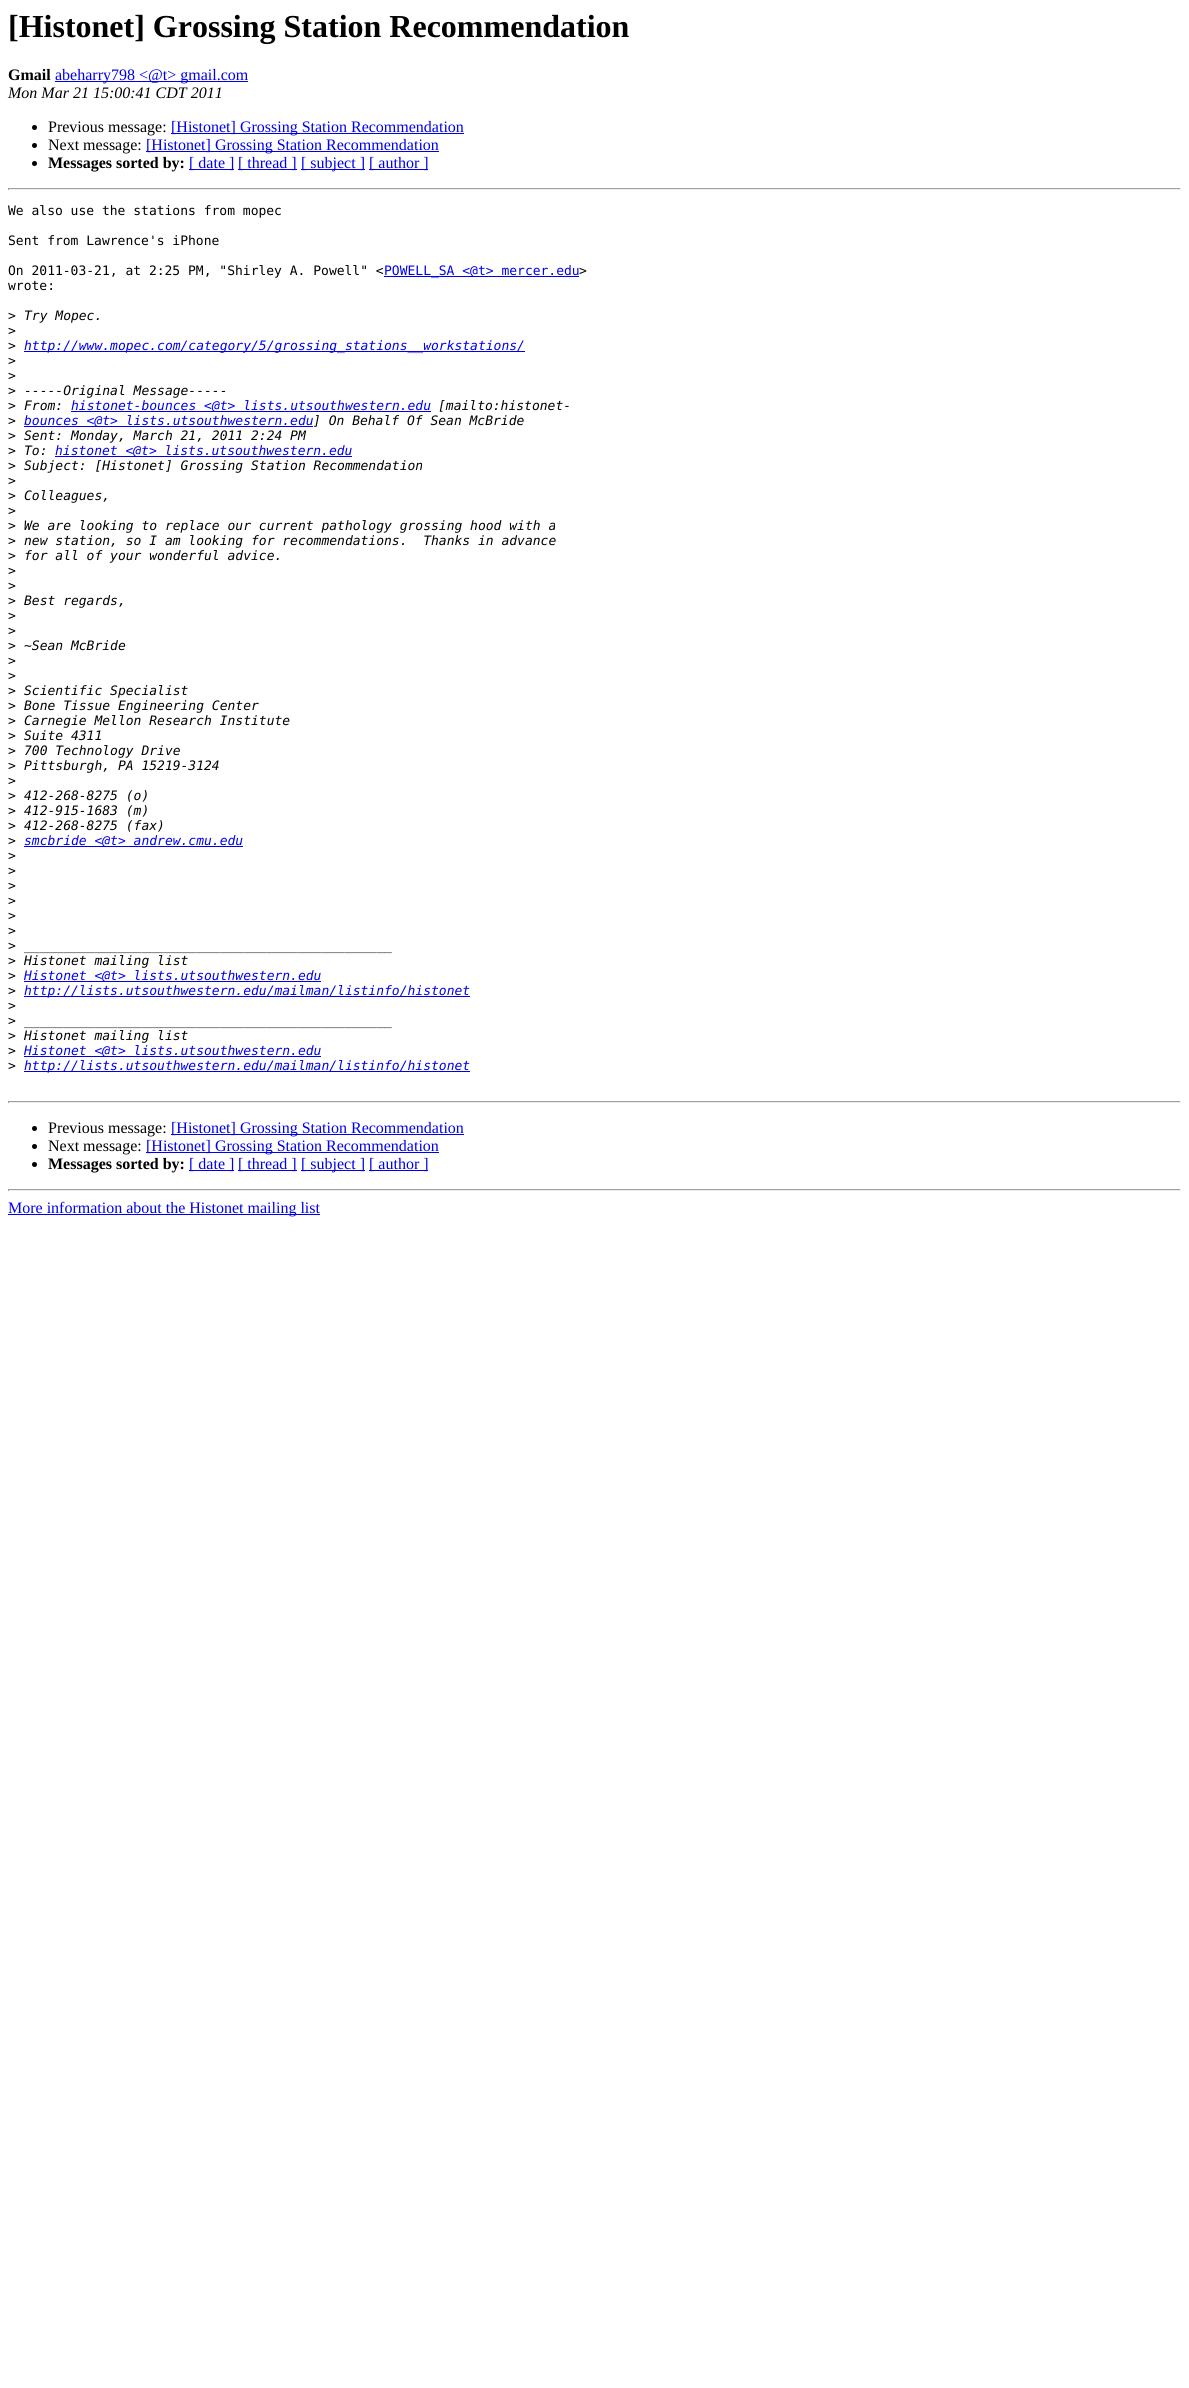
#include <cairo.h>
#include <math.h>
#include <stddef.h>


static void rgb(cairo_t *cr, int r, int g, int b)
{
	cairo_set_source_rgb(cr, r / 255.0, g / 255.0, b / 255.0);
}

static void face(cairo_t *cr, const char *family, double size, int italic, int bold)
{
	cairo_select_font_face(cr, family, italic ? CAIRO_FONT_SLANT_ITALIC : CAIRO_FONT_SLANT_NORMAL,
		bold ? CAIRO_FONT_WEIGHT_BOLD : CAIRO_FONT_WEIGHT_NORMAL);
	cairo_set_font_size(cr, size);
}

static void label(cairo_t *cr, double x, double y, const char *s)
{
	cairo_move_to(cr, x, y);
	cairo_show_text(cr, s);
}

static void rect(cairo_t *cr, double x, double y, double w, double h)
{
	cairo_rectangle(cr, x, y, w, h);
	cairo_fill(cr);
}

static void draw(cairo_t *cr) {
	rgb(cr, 255, 255, 255);
	cairo_paint(cr);
	face(cr, "Liberation Serif", 32, 0, 1);
	rgb(cr, 0, 0, 0);
	label(cr, 8, 37, "[Histonet] Grossing Station Recommendation");
	face(cr, "Liberation Serif", 16, 0, 1);
	label(cr, 8, 80, "Gmail");
	rgb(cr, 0, 0, 238);
	rect(cr, 55, 81, 193, 1);
	face(cr, "Liberation Serif", 16, 0, 0);
	label(cr, 55, 80, "abeharry798 <@t> gmail.com");
	face(cr, "Liberation Serif", 16, 1, 0);
	rgb(cr, 0, 0, 0);
	label(cr, 8, 98, "Mon Mar 21 15:00:41 CDT 2011");
	cairo_new_path(cr);
	cairo_arc(cr, 34.5, 127.5, 2.5, 0, 2 * M_PI);
	cairo_fill(cr);
	face(cr, "Liberation Serif", 16, 0, 0);
	label(cr, 48, 132, "Previous message:");
	rgb(cr, 0, 0, 238);
	rect(cr, 171, 133, 293, 1);
	label(cr, 171, 132, "[Histonet] Grossing Station Recommendation");
	rgb(cr, 0, 0, 0);
	cairo_new_path(cr);
	cairo_arc(cr, 34.5, 145.5, 2.5, 0, 2 * M_PI);
	cairo_fill(cr);
	label(cr, 48, 150, "Next message:");
	rgb(cr, 0, 0, 238);
	rect(cr, 146, 151, 293, 1);
	label(cr, 146, 150, "[Histonet] Grossing Station Recommendation");
	rgb(cr, 0, 0, 0);
	cairo_new_path(cr);
	cairo_arc(cr, 34.5, 163.5, 2.5, 0, 2 * M_PI);
	cairo_fill(cr);
	face(cr, "Liberation Serif", 16, 0, 1);
	label(cr, 48, 168, "Messages sorted by:");
	rgb(cr, 0, 0, 238);
	rect(cr, 189, 169, 45, 1);
	face(cr, "Liberation Serif", 16, 0, 0);
	label(cr, 189, 168, "[ date ]");
	rect(cr, 238, 169, 59, 1);
	label(cr, 238, 168, "[ thread ]");
	rect(cr, 301, 169, 64, 1);
	label(cr, 301, 168, "[ subject ]");
	rect(cr, 369, 169, 59, 1);
	label(cr, 369, 168, "[ author ]");
	rgb(cr, 159, 159, 159);
	rect(cr, 8, 188, 1173, 1);
	rgb(cr, 238, 238, 238);
	rect(cr, 1180, 188, 1, 2);
	rect(cr, 8, 189, 1173, 1);
	rgb(cr, 159, 159, 159);
	rect(cr, 8, 188, 1, 2);
	face(cr, "DejaVu Sans Mono", 13, 0, 0);
	rgb(cr, 0, 0, 0);
	label(cr, 8, 215, "We also use the stations from mopec");
	label(cr, 8, 245, "Sent from Lawrence's iPhone");
	label(cr, 8, 275, "On 2011-03-21, at 2:25 PM, \"Shirley A. Powell\" <");
	rgb(cr, 0, 0, 238);
	rect(cr, 384, 276, 195, 1);
	label(cr, 384, 275, "POWELL_SA <@t> mercer.edu");
	rgb(cr, 0, 0, 0);
	label(cr, 579, 275, ">");
	label(cr, 8, 290, "wrote:");
	label(cr, 8, 320, ">");
	face(cr, "DejaVu Sans Mono", 13, 1, 0);
	label(cr, 24, 320, "Try Mopec.");
	face(cr, "DejaVu Sans Mono", 13, 0, 0);
	label(cr, 8, 335, ">");
	label(cr, 8, 350, ">");
	rgb(cr, 0, 0, 238);
	rect(cr, 24, 351, 501, 1);
	face(cr, "DejaVu Sans Mono", 13, 1, 0);
	label(cr, 24, 350, "http://www.mopec.com/category/5/grossing_stations__workstations/");
	face(cr, "DejaVu Sans Mono", 13, 0, 0);
	rgb(cr, 0, 0, 0);
	label(cr, 8, 365, ">");
	label(cr, 8, 380, ">");
	label(cr, 8, 395, ">");
	face(cr, "DejaVu Sans Mono", 13, 1, 0);
	label(cr, 24, 395, "-----Original Message-----");
	face(cr, "DejaVu Sans Mono", 13, 0, 0);
	label(cr, 8, 410, ">");
	face(cr, "DejaVu Sans Mono", 13, 1, 0);
	label(cr, 24, 410, "From:");
	rgb(cr, 0, 0, 238);
	rect(cr, 71, 411, 360, 1);
	label(cr, 71, 410, "histonet-bounces <@t> lists.utsouthwestern.edu");
	rgb(cr, 0, 0, 0);
	label(cr, 438, 410, "[mailto:histonet-");
	face(cr, "DejaVu Sans Mono", 13, 0, 0);
	label(cr, 8, 425, ">");
	rgb(cr, 0, 0, 238);
	rect(cr, 24, 426, 289, 1);
	face(cr, "DejaVu Sans Mono", 13, 1, 0);
	label(cr, 24, 425, "bounces <@t> lists.utsouthwestern.edu");
	rgb(cr, 0, 0, 0);
	label(cr, 313, 425, "] On Behalf Of Sean McBride");
	face(cr, "DejaVu Sans Mono", 13, 0, 0);
	label(cr, 8, 440, ">");
	face(cr, "DejaVu Sans Mono", 13, 1, 0);
	label(cr, 24, 440, "Sent: Monday, March 21, 2011 2:24 PM");
	face(cr, "DejaVu Sans Mono", 13, 0, 0);
	label(cr, 8, 455, ">");
	face(cr, "DejaVu Sans Mono", 13, 1, 0);
	label(cr, 24, 455, "To:");
	rgb(cr, 0, 0, 238);
	rect(cr, 55, 456, 297, 1);
	label(cr, 55, 455, "histonet <@t> lists.utsouthwestern.edu");
	face(cr, "DejaVu Sans Mono", 13, 0, 0);
	rgb(cr, 0, 0, 0);
	label(cr, 8, 470, ">");
	face(cr, "DejaVu Sans Mono", 13, 1, 0);
	label(cr, 24, 470, "Subject: [Histonet] Grossing Station Recommendation");
	face(cr, "DejaVu Sans Mono", 13, 0, 0);
	label(cr, 8, 485, ">");
	label(cr, 8, 500, ">");
	face(cr, "DejaVu Sans Mono", 13, 1, 0);
	label(cr, 24, 500, "Colleagues,");
	face(cr, "DejaVu Sans Mono", 13, 0, 0);
	label(cr, 8, 515, ">");
	label(cr, 8, 530, ">");
	face(cr, "DejaVu Sans Mono", 13, 1, 0);
	label(cr, 24, 530, "We are looking to replace our current pathology grossing hood with a");
	face(cr, "DejaVu Sans Mono", 13, 0, 0);
	label(cr, 8, 545, ">");
	face(cr, "DejaVu Sans Mono", 13, 1, 0);
	label(cr, 24, 545, "new station, so I am looking for recommendations.  Thanks in advance");
	face(cr, "DejaVu Sans Mono", 13, 0, 0);
	label(cr, 8, 560, ">");
	face(cr, "DejaVu Sans Mono", 13, 1, 0);
	label(cr, 24, 560, "for all of your wonderful advice.");
	face(cr, "DejaVu Sans Mono", 13, 0, 0);
	label(cr, 8, 575, ">");
	label(cr, 8, 590, ">");
	label(cr, 8, 605, ">");
	face(cr, "DejaVu Sans Mono", 13, 1, 0);
	label(cr, 24, 605, "Best regards,");
	face(cr, "DejaVu Sans Mono", 13, 0, 0);
	label(cr, 8, 620, ">");
	label(cr, 8, 635, ">");
	label(cr, 8, 650, ">");
	face(cr, "DejaVu Sans Mono", 13, 1, 0);
	label(cr, 24, 650, "~Sean McBride");
	face(cr, "DejaVu Sans Mono", 13, 0, 0);
	label(cr, 8, 665, ">");
	label(cr, 8, 680, ">");
	label(cr, 8, 695, ">");
	face(cr, "DejaVu Sans Mono", 13, 1, 0);
	label(cr, 24, 695, "Scientific Specialist");
	face(cr, "DejaVu Sans Mono", 13, 0, 0);
	label(cr, 8, 710, ">");
	face(cr, "DejaVu Sans Mono", 13, 1, 0);
	label(cr, 24, 710, "Bone Tissue Engineering Center");
	face(cr, "DejaVu Sans Mono", 13, 0, 0);
	label(cr, 8, 725, ">");
	face(cr, "DejaVu Sans Mono", 13, 1, 0);
	label(cr, 24, 725, "Carnegie Mellon Research Institute");
	face(cr, "DejaVu Sans Mono", 13, 0, 0);
	label(cr, 8, 740, ">");
	face(cr, "DejaVu Sans Mono", 13, 1, 0);
	label(cr, 24, 740, "Suite 4311");
	face(cr, "DejaVu Sans Mono", 13, 0, 0);
	label(cr, 8, 755, ">");
	face(cr, "DejaVu Sans Mono", 13, 1, 0);
	label(cr, 24, 755, "700 Technology Drive");
	face(cr, "DejaVu Sans Mono", 13, 0, 0);
	label(cr, 8, 770, ">");
	face(cr, "DejaVu Sans Mono", 13, 1, 0);
	label(cr, 24, 770, "Pittsburgh, PA 15219-3124");
	face(cr, "DejaVu Sans Mono", 13, 0, 0);
	label(cr, 8, 785, ">");
	label(cr, 8, 800, ">");
	face(cr, "DejaVu Sans Mono", 13, 1, 0);
	label(cr, 24, 800, "412-268-8275 (o)");
	face(cr, "DejaVu Sans Mono", 13, 0, 0);
	label(cr, 8, 815, ">");
	face(cr, "DejaVu Sans Mono", 13, 1, 0);
	label(cr, 24, 815, "412-915-1683 (m)");
	face(cr, "DejaVu Sans Mono", 13, 0, 0);
	label(cr, 8, 830, ">");
	face(cr, "DejaVu Sans Mono", 13, 1, 0);
	label(cr, 24, 830, "412-268-8275 (fax)");
	face(cr, "DejaVu Sans Mono", 13, 0, 0);
	label(cr, 8, 845, ">");
	rgb(cr, 0, 0, 238);
	rect(cr, 24, 846, 219, 1);
	face(cr, "DejaVu Sans Mono", 13, 1, 0);
	label(cr, 24, 845, "smcbride <@t> andrew.cmu.edu");
	face(cr, "DejaVu Sans Mono", 13, 0, 0);
	rgb(cr, 0, 0, 0);
	label(cr, 8, 860, ">");
	label(cr, 8, 875, ">");
	label(cr, 8, 890, ">");
	label(cr, 8, 905, ">");
	label(cr, 8, 920, ">");
	label(cr, 8, 935, ">");
	label(cr, 8, 950, ">");
	face(cr, "DejaVu Sans Mono", 13, 1, 0);
	label(cr, 24, 950, "_______________________________________________");
	face(cr, "DejaVu Sans Mono", 13, 0, 0);
	label(cr, 8, 965, ">");
	face(cr, "DejaVu Sans Mono", 13, 1, 0);
	label(cr, 24, 965, "Histonet mailing list");
	face(cr, "DejaVu Sans Mono", 13, 0, 0);
	label(cr, 8, 980, ">");
	rgb(cr, 0, 0, 238);
	rect(cr, 24, 981, 297, 1);
	face(cr, "DejaVu Sans Mono", 13, 1, 0);
	label(cr, 24, 980, "Histonet <@t> lists.utsouthwestern.edu");
	face(cr, "DejaVu Sans Mono", 13, 0, 0);
	rgb(cr, 0, 0, 0);
	label(cr, 8, 995, ">");
	rgb(cr, 0, 0, 238);
	rect(cr, 24, 996, 446, 1);
	face(cr, "DejaVu Sans Mono", 13, 1, 0);
	label(cr, 24, 995, "http://lists.utsouthwestern.edu/mailman/listinfo/histonet");
	face(cr, "DejaVu Sans Mono", 13, 0, 0);
	rgb(cr, 0, 0, 0);
	label(cr, 8, 1010, ">");
	label(cr, 8, 1025, ">");
	face(cr, "DejaVu Sans Mono", 13, 1, 0);
	label(cr, 24, 1025, "_______________________________________________");
	face(cr, "DejaVu Sans Mono", 13, 0, 0);
	label(cr, 8, 1040, ">");
	face(cr, "DejaVu Sans Mono", 13, 1, 0);
	label(cr, 24, 1040, "Histonet mailing list");
	face(cr, "DejaVu Sans Mono", 13, 0, 0);
	label(cr, 8, 1055, ">");
	rgb(cr, 0, 0, 238);
	rect(cr, 24, 1056, 297, 1);
	face(cr, "DejaVu Sans Mono", 13, 1, 0);
	label(cr, 24, 1055, "Histonet <@t> lists.utsouthwestern.edu");
	face(cr, "DejaVu Sans Mono", 13, 0, 0);
	rgb(cr, 0, 0, 0);
	label(cr, 8, 1070, ">");
	rgb(cr, 0, 0, 238);
	rect(cr, 24, 1071, 446, 1);
	face(cr, "DejaVu Sans Mono", 13, 1, 0);
	label(cr, 24, 1070, "http://lists.utsouthwestern.edu/mailman/listinfo/histonet");
	rgb(cr, 159, 159, 159);
	rect(cr, 8, 1101, 1173, 1);
	rgb(cr, 238, 238, 238);
	rect(cr, 1180, 1101, 1, 2);
	rect(cr, 8, 1102, 1173, 1);
	rgb(cr, 159, 159, 159);
	rect(cr, 8, 1101, 1, 2);
	rgb(cr, 0, 0, 0);
	cairo_new_path(cr);
	cairo_arc(cr, 34.5, 1128.5, 2.5, 0, 2 * M_PI);
	cairo_fill(cr);
	face(cr, "Liberation Serif", 16, 0, 0);
	label(cr, 48, 1133, "Previous message:");
	rgb(cr, 0, 0, 238);
	rect(cr, 171, 1134, 293, 1);
	label(cr, 171, 1133, "[Histonet] Grossing Station Recommendation");
	rgb(cr, 0, 0, 0);
	cairo_new_path(cr);
	cairo_arc(cr, 34.5, 1146.5, 2.5, 0, 2 * M_PI);
	cairo_fill(cr);
	label(cr, 48, 1151, "Next message:");
	rgb(cr, 0, 0, 238);
	rect(cr, 146, 1152, 293, 1);
	label(cr, 146, 1151, "[Histonet] Grossing Station Recommendation");
	rgb(cr, 0, 0, 0);
	cairo_new_path(cr);
	cairo_arc(cr, 34.5, 1164.5, 2.5, 0, 2 * M_PI);
	cairo_fill(cr);
	face(cr, "Liberation Serif", 16, 0, 1);
	label(cr, 48, 1169, "Messages sorted by:");
	rgb(cr, 0, 0, 238);
	rect(cr, 189, 1170, 45, 1);
	face(cr, "Liberation Serif", 16, 0, 0);
	label(cr, 189, 1169, "[ date ]");
	rect(cr, 238, 1170, 59, 1);
	label(cr, 238, 1169, "[ thread ]");
	rect(cr, 301, 1170, 64, 1);
	label(cr, 301, 1169, "[ subject ]");
	rect(cr, 369, 1170, 59, 1);
	label(cr, 369, 1169, "[ author ]");
	rgb(cr, 159, 159, 159);
	rect(cr, 8, 1189, 1173, 1);
	rgb(cr, 238, 238, 238);
	rect(cr, 1180, 1189, 1, 2);
	rect(cr, 8, 1190, 1173, 1);
	rgb(cr, 159, 159, 159);
	rect(cr, 8, 1189, 1, 2);
	rgb(cr, 0, 0, 238);
	rect(cr, 8, 1214, 312, 1);
	label(cr, 8, 1213, "More information about the Histonet mailing list");
}

int main(void) {
	cairo_surface_t *surface = cairo_image_surface_create(CAIRO_FORMAT_RGB24, 1189, 2388);
	cairo_t *cr = cairo_create(surface);
	cairo_font_options_t *options = cairo_font_options_create();
	cairo_font_options_set_hint_metrics(options, CAIRO_HINT_METRICS_OFF);
	cairo_font_options_set_hint_style(options, CAIRO_HINT_STYLE_NONE);
	cairo_set_font_options(cr, options);
	cairo_set_miter_limit(cr, 4);
	draw(cr);
	cairo_surface_write_to_png(surface, "render.png");
	cairo_font_options_destroy(options);
	cairo_destroy(cr);
	cairo_surface_destroy(surface);
	return 0;
}
